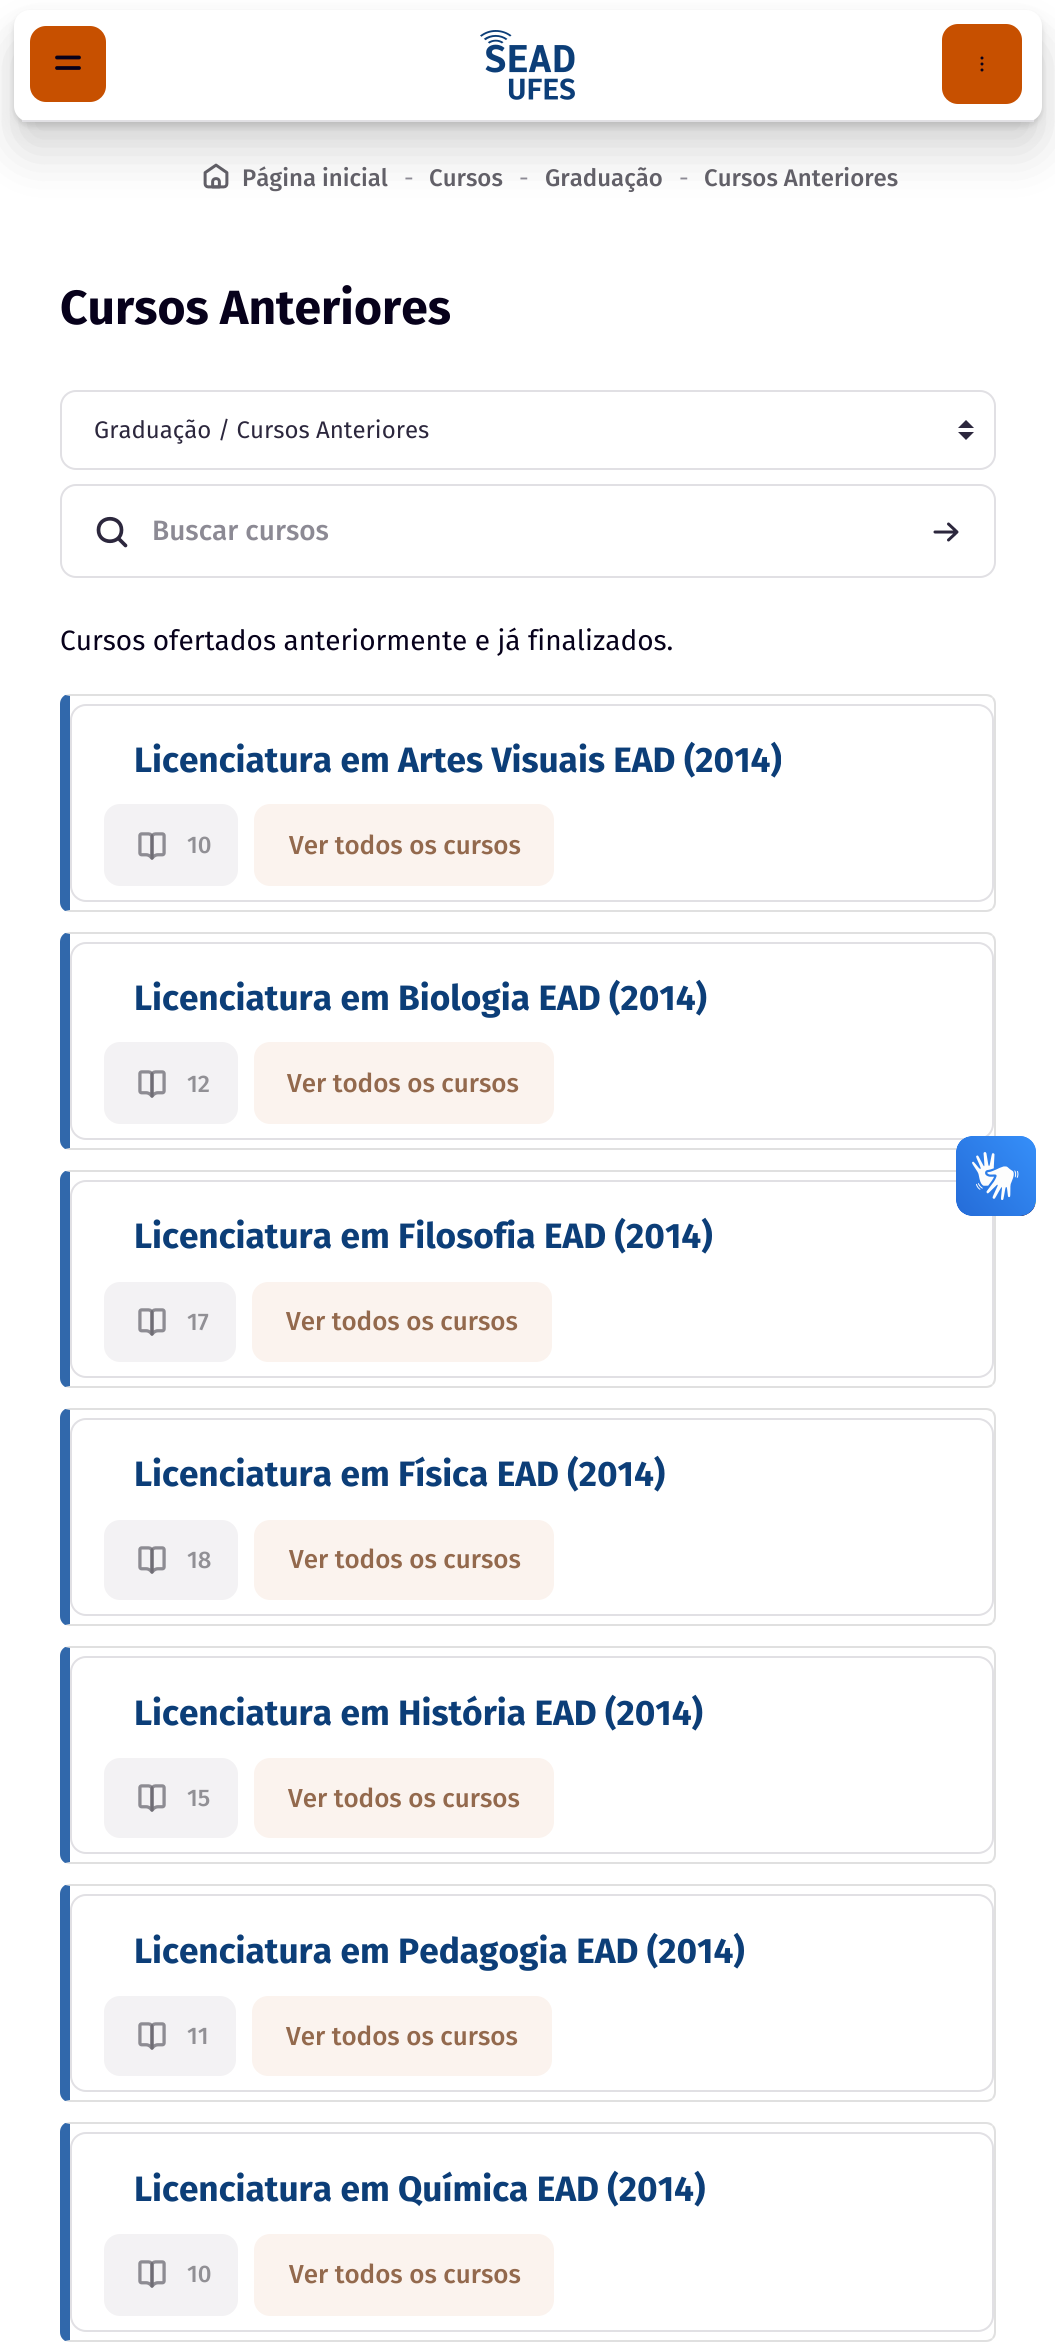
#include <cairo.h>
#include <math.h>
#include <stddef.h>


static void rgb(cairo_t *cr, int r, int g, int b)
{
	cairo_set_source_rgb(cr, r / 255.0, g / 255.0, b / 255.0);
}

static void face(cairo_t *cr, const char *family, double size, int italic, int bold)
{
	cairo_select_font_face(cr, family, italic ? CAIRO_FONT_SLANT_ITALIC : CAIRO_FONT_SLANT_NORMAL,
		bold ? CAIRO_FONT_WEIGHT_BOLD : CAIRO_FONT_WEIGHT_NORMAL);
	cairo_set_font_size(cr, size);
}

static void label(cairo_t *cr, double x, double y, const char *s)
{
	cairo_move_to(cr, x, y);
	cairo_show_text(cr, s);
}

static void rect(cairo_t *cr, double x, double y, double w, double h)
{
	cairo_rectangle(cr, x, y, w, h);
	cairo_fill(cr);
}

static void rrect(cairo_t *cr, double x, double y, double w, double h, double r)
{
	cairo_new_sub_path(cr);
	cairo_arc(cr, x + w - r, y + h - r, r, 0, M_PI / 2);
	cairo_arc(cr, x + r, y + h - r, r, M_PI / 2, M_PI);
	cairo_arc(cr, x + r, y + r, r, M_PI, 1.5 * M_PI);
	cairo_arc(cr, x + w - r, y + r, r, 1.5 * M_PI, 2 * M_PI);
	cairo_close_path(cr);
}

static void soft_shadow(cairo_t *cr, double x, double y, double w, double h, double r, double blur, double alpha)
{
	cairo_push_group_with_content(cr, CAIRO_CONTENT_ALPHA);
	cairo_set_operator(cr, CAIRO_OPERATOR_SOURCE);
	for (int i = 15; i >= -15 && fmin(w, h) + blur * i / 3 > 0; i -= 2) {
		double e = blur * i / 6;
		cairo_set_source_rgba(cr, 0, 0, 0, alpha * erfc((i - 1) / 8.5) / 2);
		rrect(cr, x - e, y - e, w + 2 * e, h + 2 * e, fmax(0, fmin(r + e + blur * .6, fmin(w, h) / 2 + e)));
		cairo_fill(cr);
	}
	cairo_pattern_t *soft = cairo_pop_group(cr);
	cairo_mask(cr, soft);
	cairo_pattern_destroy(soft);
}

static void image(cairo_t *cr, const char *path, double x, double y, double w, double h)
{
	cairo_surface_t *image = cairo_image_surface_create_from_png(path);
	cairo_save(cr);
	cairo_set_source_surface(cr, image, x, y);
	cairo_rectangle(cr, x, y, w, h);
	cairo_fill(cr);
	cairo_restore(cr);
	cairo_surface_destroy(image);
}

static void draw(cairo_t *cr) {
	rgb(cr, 255, 255, 255);
	cairo_paint(cr);
	rgb(cr, 0, 0, 0);
	soft_shadow(cr, 14, 14, 1028, 112, 16, 3, 0.12);
	soft_shadow(cr, 14, 20, 1028, 112, 16, 10, 0.05);
	image(cr, "image2.png", 203, 163, 26, 26);
	soft_shadow(cr, 14, 40, 1028, 112, 16, 25, 0.15);
	rgb(cr, 255, 255, 255);
	rrect(cr, 14, 10, 1028, 112, 16);
	cairo_fill(cr);
	rgb(cr, 225, 224, 228);
	rect(cr, 22, 120, 1012, 2);
	rgb(cr, 199, 80, 0);
	rrect(cr, 30, 26, 76, 76, 16);
	cairo_fill(cr);
	cairo_new_path(cr);
	cairo_move_to(cr, 57, 57.5);
	cairo_line_to(cr, 79, 57.5);
	cairo_move_to(cr, 57, 68);
	cairo_line_to(cr, 79, 68);
	rgb(cr, 7, 1, 27);
	cairo_set_line_width(cr, 3.8);
	cairo_set_line_cap(cr, CAIRO_LINE_CAP_ROUND);
	cairo_set_line_join(cr, CAIRO_LINE_JOIN_ROUND);
	cairo_stroke(cr);
	image(cr, "image0.png", 480, 30, 95, 70);
	rgb(cr, 199, 80, 0);
	rrect(cr, 942, 24, 80, 80, 16);
	cairo_fill(cr);
	image(cr, "image1.png", 980, 56, 4, 16);
	face(cr, "Fira Sans Medium", 24, 0, 0);
	rgb(cr, 98, 96, 104);
	label(cr, 242, 186, "Página inicial");
	face(cr, "Fira Sans", 24, 0, 0);
	rgb(cr, 140, 138, 148);
	label(cr, 404, 186, "-");
	face(cr, "Fira Sans Medium", 24, 0, 0);
	rgb(cr, 98, 96, 104);
	label(cr, 429, 186, "Cursos");
	face(cr, "Fira Sans", 24, 0, 0);
	rgb(cr, 140, 138, 148);
	label(cr, 519, 186, "-");
	face(cr, "Fira Sans Medium", 24, 0, 0);
	rgb(cr, 98, 96, 104);
	label(cr, 545, 186, "Graduação");
	face(cr, "Fira Sans", 24, 0, 0);
	rgb(cr, 140, 138, 148);
	label(cr, 679, 186, "-");
	face(cr, "Fira Sans Medium", 24, 0, 0);
	rgb(cr, 98, 96, 104);
	label(cr, 704, 186, "Cursos Anteriores");
	face(cr, "Fira Sans", 48, 0, 1);
	rgb(cr, 7, 1, 27);
	label(cr, 60, 324, "Cursos Anteriores");
	rgb(cr, 44, 39, 61);
	cairo_new_path(cr);
	cairo_move_to(cr, 966, 420);
	cairo_line_to(cr, 958, 428);
	cairo_line_to(cr, 974, 428);
	cairo_close_path(cr);
	cairo_move_to(cr, 966, 440);
	cairo_line_to(cr, 958, 432);
	cairo_line_to(cr, 974, 432);
	cairo_close_path(cr);
	cairo_fill(cr);
	rrect(cr, 61, 391, 934, 78, 15);
	rgb(cr, 225, 224, 228);
	cairo_set_line_width(cr, 2);
	cairo_set_line_cap(cr, CAIRO_LINE_CAP_BUTT);
	cairo_set_line_join(cr, CAIRO_LINE_JOIN_MITER);
	cairo_stroke(cr);
	face(cr, "Fira Sans", 24, 0, 0);
	rgb(cr, 44, 39, 61);
	label(cr, 94, 438, "Graduação / Cursos Anteriores");
	rrect(cr, 61, 485, 934, 92, 15);
	rgb(cr, 225, 224, 228);
	cairo_stroke(cr);
	cairo_new_path(cr);
	cairo_move_to(cr, 125.5, 545.5);
	cairo_line_to(cr, 118.5, 538.5);
	cairo_move_to(cr, 98.5, 530);
	cairo_curve_to(cr, 98.5, 515, 121.5, 515, 121.5, 530);
	cairo_curve_to(cr, 121.5, 545, 98.5, 545, 98.5, 530);
	cairo_close_path(cr);
	rgb(cr, 44, 39, 61);
	cairo_set_line_width(cr, 3.7);
	cairo_set_line_cap(cr, CAIRO_LINE_CAP_ROUND);
	cairo_set_line_join(cr, CAIRO_LINE_JOIN_ROUND);
	cairo_stroke(cr);
	face(cr, "Fira Sans Medium", 28, 0, 0);
	rgb(cr, 140, 138, 148);
	label(cr, 152, 540, "Buscar cursos");
	cairo_new_path(cr);
	cairo_move_to(cr, 948.5, 524);
	cairo_line_to(cr, 957, 532);
	cairo_line_to(cr, 948.5, 540);
	cairo_move_to(cr, 956.5, 532);
	cairo_line_to(cr, 935, 532);
	rgb(cr, 44, 39, 61);
	cairo_set_line_width(cr, 3);
	cairo_stroke(cr);
	face(cr, "Fira Sans", 28, 0, 0);
	rgb(cr, 7, 1, 27);
	label(cr, 60, 650, "Cursos ofertados anteriormente e já finalizados.");
	rgb(cr, 224, 224, 224);
	cairo_new_path(cr);
	cairo_move_to(cr, 70, 694);
	cairo_line_to(cr, 65, 695);
	cairo_line_to(cr, 70, 696);
	cairo_line_to(cr, 986, 696);
	cairo_curve_to(cr, 988, 696, 990, 697, 992, 698);
	cairo_line_to(cr, 993, 697);
	cairo_curve_to(cr, 992, 695, 989, 694, 986, 694);
	cairo_close_path(cr);
	cairo_fill(cr);
	cairo_new_path(cr);
	cairo_move_to(cr, 996, 902);
	cairo_line_to(cr, 996, 704);
	cairo_curve_to(cr, 996, 701, 995, 698, 993, 697);
	cairo_line_to(cr, 992, 698);
	cairo_curve_to(cr, 993, 700, 994, 702, 994, 704);
	cairo_line_to(cr, 994, 902);
	cairo_curve_to(cr, 994, 904, 993, 906, 992, 908);
	cairo_line_to(cr, 993, 909);
	cairo_curve_to(cr, 995, 908, 996, 905, 996, 902);
	cairo_close_path(cr);
	cairo_fill(cr);
	cairo_new_path(cr);
	cairo_move_to(cr, 70, 912);
	cairo_line_to(cr, 986, 912);
	cairo_curve_to(cr, 989, 912, 992, 911, 993, 909);
	cairo_line_to(cr, 992, 908);
	cairo_curve_to(cr, 990, 909, 988, 910, 986, 910);
	cairo_line_to(cr, 70, 910);
	cairo_line_to(cr, 65, 911);
	cairo_close_path(cr);
	cairo_fill(cr);
	rgb(cr, 49, 104, 171);
	cairo_new_path(cr);
	cairo_move_to(cr, 70, 696);
	cairo_line_to(cr, 65, 695);
	cairo_curve_to(cr, 62, 697, 60, 700, 60, 704);
	cairo_line_to(cr, 60, 902);
	cairo_curve_to(cr, 60, 906, 62, 909, 65, 911);
	cairo_line_to(cr, 70, 910);
	cairo_close_path(cr);
	cairo_fill(cr);
	rrect(cr, 71, 705, 922, 196, 15);
	rgb(cr, 225, 224, 228);
	cairo_set_line_width(cr, 2);
	cairo_set_line_cap(cr, CAIRO_LINE_CAP_BUTT);
	cairo_set_line_join(cr, CAIRO_LINE_JOIN_MITER);
	cairo_stroke(cr);
	face(cr, "Fira Sans", 35.25, 0, 1);
	rgb(cr, 12, 62, 120);
	label(cr, 134, 772, "Licenciatura em Artes Visuais EAD (2014)");
	rgb(cr, 243, 242, 244);
	rrect(cr, 104, 804, 134, 82, 16);
	cairo_fill(cr);
	image(cr, "image3.png", 138, 832, 28, 28);
	face(cr, "Fira Sans Medium", 24, 0, 0);
	rgb(cr, 145, 144, 149);
	label(cr, 187, 853, "10");
	rgb(cr, 251, 243, 238);
	rrect(cr, 254, 804, 300, 82, 16);
	cairo_fill(cr);
	face(cr, "Fira Sans Medium", 26, 0, 0);
	rgb(cr, 147, 105, 77);
	label(cr, 289, 854, "Ver todos os cursos");
	rgb(cr, 224, 224, 224);
	cairo_new_path(cr);
	cairo_move_to(cr, 70, 932);
	cairo_line_to(cr, 65, 933);
	cairo_line_to(cr, 70, 934);
	cairo_line_to(cr, 986, 934);
	cairo_curve_to(cr, 988, 934, 990, 935, 992, 936);
	cairo_line_to(cr, 993, 935);
	cairo_curve_to(cr, 992, 933, 989, 932, 986, 932);
	cairo_close_path(cr);
	cairo_fill(cr);
	cairo_new_path(cr);
	cairo_move_to(cr, 996, 1140);
	cairo_line_to(cr, 996, 942);
	cairo_curve_to(cr, 996, 939, 995, 936, 993, 935);
	cairo_line_to(cr, 992, 936);
	cairo_curve_to(cr, 993, 938, 994, 940, 994, 942);
	cairo_line_to(cr, 994, 1140);
	cairo_curve_to(cr, 994, 1142, 993, 1144, 992, 1146);
	cairo_line_to(cr, 993, 1147);
	cairo_curve_to(cr, 995, 1146, 996, 1143, 996, 1140);
	cairo_close_path(cr);
	cairo_fill(cr);
	cairo_new_path(cr);
	cairo_move_to(cr, 70, 1150);
	cairo_line_to(cr, 986, 1150);
	cairo_curve_to(cr, 989, 1150, 992, 1149, 993, 1147);
	cairo_line_to(cr, 992, 1146);
	cairo_curve_to(cr, 990, 1147, 988, 1148, 986, 1148);
	cairo_line_to(cr, 70, 1148);
	cairo_line_to(cr, 65, 1149);
	cairo_close_path(cr);
	cairo_fill(cr);
	rgb(cr, 49, 104, 171);
	cairo_new_path(cr);
	cairo_move_to(cr, 70, 934);
	cairo_line_to(cr, 65, 933);
	cairo_curve_to(cr, 62, 935, 60, 938, 60, 942);
	cairo_line_to(cr, 60, 1140);
	cairo_curve_to(cr, 60, 1144, 62, 1147, 65, 1149);
	cairo_line_to(cr, 70, 1148);
	cairo_close_path(cr);
	cairo_fill(cr);
	rrect(cr, 71, 943, 922, 196, 15);
	rgb(cr, 225, 224, 228);
	cairo_stroke(cr);
	face(cr, "Fira Sans", 35.25, 0, 1);
	rgb(cr, 12, 62, 120);
	label(cr, 134, 1010, "Licenciatura em Biologia EAD (2014)");
	rgb(cr, 243, 242, 244);
	rrect(cr, 104, 1042, 134, 82, 16);
	cairo_fill(cr);
	image(cr, "image3.png", 138, 1070, 28, 28);
	face(cr, "Fira Sans Medium", 24, 0, 0);
	rgb(cr, 145, 144, 149);
	label(cr, 187, 1092, "12");
	rgb(cr, 251, 243, 238);
	rrect(cr, 254, 1042, 300, 82, 16);
	cairo_fill(cr);
	face(cr, "Fira Sans Medium", 26, 0, 0);
	rgb(cr, 147, 105, 77);
	label(cr, 287, 1092, "Ver todos os cursos");
	rgb(cr, 224, 224, 224);
	cairo_new_path(cr);
	cairo_move_to(cr, 70, 1170);
	cairo_line_to(cr, 65, 1171);
	cairo_line_to(cr, 70, 1172);
	cairo_line_to(cr, 986, 1172);
	cairo_curve_to(cr, 988, 1172, 990, 1173, 992, 1174);
	cairo_line_to(cr, 993, 1173);
	cairo_curve_to(cr, 992, 1171, 989, 1170, 986, 1170);
	cairo_close_path(cr);
	cairo_fill(cr);
	cairo_new_path(cr);
	cairo_move_to(cr, 996, 1378);
	cairo_line_to(cr, 996, 1180);
	cairo_curve_to(cr, 996, 1177, 995, 1174, 993, 1173);
	cairo_line_to(cr, 992, 1174);
	cairo_curve_to(cr, 993, 1176, 994, 1178, 994, 1180);
	cairo_line_to(cr, 994, 1378);
	cairo_curve_to(cr, 994, 1380, 993, 1382, 992, 1384);
	cairo_line_to(cr, 993, 1385);
	cairo_curve_to(cr, 995, 1384, 996, 1381, 996, 1378);
	cairo_close_path(cr);
	cairo_fill(cr);
	cairo_new_path(cr);
	cairo_move_to(cr, 70, 1388);
	cairo_line_to(cr, 986, 1388);
	cairo_curve_to(cr, 989, 1388, 992, 1387, 993, 1385);
	cairo_line_to(cr, 992, 1384);
	cairo_curve_to(cr, 990, 1385, 988, 1386, 986, 1386);
	cairo_line_to(cr, 70, 1386);
	cairo_line_to(cr, 65, 1387);
	cairo_close_path(cr);
	cairo_fill(cr);
	rgb(cr, 49, 104, 171);
	cairo_new_path(cr);
	cairo_move_to(cr, 70, 1172);
	cairo_line_to(cr, 65, 1171);
	cairo_curve_to(cr, 62, 1173, 60, 1176, 60, 1180);
	cairo_line_to(cr, 60, 1378);
	cairo_curve_to(cr, 60, 1382, 62, 1385, 65, 1387);
	cairo_line_to(cr, 70, 1386);
	cairo_close_path(cr);
	cairo_fill(cr);
	rrect(cr, 71, 1181, 922, 196, 15);
	rgb(cr, 225, 224, 228);
	cairo_stroke(cr);
	face(cr, "Fira Sans", 35.25, 0, 1);
	rgb(cr, 12, 62, 120);
	label(cr, 134, 1248, "Licenciatura em Filosofia EAD (2014)");
	rgb(cr, 243, 242, 244);
	rrect(cr, 104, 1282, 132, 80, 16);
	cairo_fill(cr);
	image(cr, "image3.png", 138, 1308, 28, 28);
	face(cr, "Fira Sans Medium", 24, 0, 0);
	rgb(cr, 145, 144, 149);
	label(cr, 187, 1330, "17");
	rgb(cr, 251, 243, 238);
	rrect(cr, 252, 1282, 300, 80, 16);
	cairo_fill(cr);
	face(cr, "Fira Sans Medium", 26, 0, 0);
	rgb(cr, 147, 105, 77);
	label(cr, 286, 1330, "Ver todos os cursos");
	rgb(cr, 224, 224, 224);
	cairo_new_path(cr);
	cairo_move_to(cr, 70, 1408);
	cairo_line_to(cr, 65, 1409);
	cairo_line_to(cr, 70, 1410);
	cairo_line_to(cr, 986, 1410);
	cairo_curve_to(cr, 988, 1410, 990, 1411, 992, 1412);
	cairo_line_to(cr, 993, 1411);
	cairo_curve_to(cr, 992, 1409, 989, 1408, 986, 1408);
	cairo_close_path(cr);
	cairo_fill(cr);
	cairo_new_path(cr);
	cairo_move_to(cr, 996, 1616);
	cairo_line_to(cr, 996, 1418);
	cairo_curve_to(cr, 996, 1415, 995, 1412, 993, 1411);
	cairo_line_to(cr, 992, 1412);
	cairo_curve_to(cr, 993, 1414, 994, 1416, 994, 1418);
	cairo_line_to(cr, 994, 1616);
	cairo_curve_to(cr, 994, 1618, 993, 1620, 992, 1622);
	cairo_line_to(cr, 993, 1623);
	cairo_curve_to(cr, 995, 1622, 996, 1619, 996, 1616);
	cairo_close_path(cr);
	cairo_fill(cr);
	cairo_new_path(cr);
	cairo_move_to(cr, 70, 1626);
	cairo_line_to(cr, 986, 1626);
	cairo_curve_to(cr, 989, 1626, 992, 1625, 993, 1623);
	cairo_line_to(cr, 992, 1622);
	cairo_curve_to(cr, 990, 1623, 988, 1624, 986, 1624);
	cairo_line_to(cr, 70, 1624);
	cairo_line_to(cr, 65, 1625);
	cairo_close_path(cr);
	cairo_fill(cr);
	rgb(cr, 49, 104, 171);
	cairo_new_path(cr);
	cairo_move_to(cr, 70, 1410);
	cairo_line_to(cr, 65, 1409);
	cairo_curve_to(cr, 62, 1411, 60, 1414, 60, 1418);
	cairo_line_to(cr, 60, 1616);
	cairo_curve_to(cr, 60, 1620, 62, 1623, 65, 1625);
	cairo_line_to(cr, 70, 1624);
	cairo_close_path(cr);
	cairo_fill(cr);
	rrect(cr, 71, 1419, 922, 196, 15);
	rgb(cr, 225, 224, 228);
	cairo_stroke(cr);
	face(cr, "Fira Sans", 35.25, 0, 1);
	rgb(cr, 12, 62, 120);
	label(cr, 134, 1486, "Licenciatura em Física EAD (2014)");
	rgb(cr, 243, 242, 244);
	rrect(cr, 104, 1520, 134, 80, 16);
	cairo_fill(cr);
	image(cr, "image3.png", 138, 1546, 28, 28);
	face(cr, "Fira Sans Medium", 24, 0, 0);
	rgb(cr, 145, 144, 149);
	label(cr, 187, 1568, "18");
	rgb(cr, 251, 243, 238);
	rrect(cr, 254, 1520, 300, 80, 16);
	cairo_fill(cr);
	face(cr, "Fira Sans Medium", 26, 0, 0);
	rgb(cr, 147, 105, 77);
	label(cr, 289, 1568, "Ver todos os cursos");
	rgb(cr, 224, 224, 224);
	cairo_new_path(cr);
	cairo_move_to(cr, 70, 1646);
	cairo_line_to(cr, 65, 1647);
	cairo_line_to(cr, 70, 1648);
	cairo_line_to(cr, 986, 1648);
	cairo_curve_to(cr, 988, 1648, 990, 1649, 992, 1650);
	cairo_line_to(cr, 993, 1649);
	cairo_curve_to(cr, 992, 1647, 989, 1646, 986, 1646);
	cairo_close_path(cr);
	cairo_fill(cr);
	cairo_new_path(cr);
	cairo_move_to(cr, 996, 1854);
	cairo_line_to(cr, 996, 1656);
	cairo_curve_to(cr, 996, 1653, 995, 1650, 993, 1649);
	cairo_line_to(cr, 992, 1650);
	cairo_curve_to(cr, 993, 1652, 994, 1654, 994, 1656);
	cairo_line_to(cr, 994, 1854);
	cairo_curve_to(cr, 994, 1856, 993, 1858, 992, 1860);
	cairo_line_to(cr, 993, 1861);
	cairo_curve_to(cr, 995, 1860, 996, 1857, 996, 1854);
	cairo_close_path(cr);
	cairo_fill(cr);
	cairo_new_path(cr);
	cairo_move_to(cr, 70, 1864);
	cairo_line_to(cr, 986, 1864);
	cairo_curve_to(cr, 989, 1864, 992, 1863, 993, 1861);
	cairo_line_to(cr, 992, 1860);
	cairo_curve_to(cr, 990, 1861, 988, 1862, 986, 1862);
	cairo_line_to(cr, 70, 1862);
	cairo_line_to(cr, 65, 1863);
	cairo_close_path(cr);
	cairo_fill(cr);
	rgb(cr, 49, 104, 171);
	cairo_new_path(cr);
	cairo_move_to(cr, 70, 1648);
	cairo_line_to(cr, 65, 1647);
	cairo_curve_to(cr, 62, 1649, 60, 1652, 60, 1656);
	cairo_line_to(cr, 60, 1854);
	cairo_curve_to(cr, 60, 1858, 62, 1861, 65, 1863);
	cairo_line_to(cr, 70, 1862);
	cairo_close_path(cr);
	cairo_fill(cr);
	rrect(cr, 71, 1657, 922, 196, 15);
	rgb(cr, 225, 224, 228);
	cairo_stroke(cr);
	face(cr, "Fira Sans", 35.25, 0, 1);
	rgb(cr, 12, 62, 120);
	label(cr, 134, 1725, "Licenciatura em História EAD (2014)");
	rgb(cr, 243, 242, 244);
	rrect(cr, 104, 1758, 134, 80, 16);
	cairo_fill(cr);
	image(cr, "image3.png", 138, 1784, 28, 28);
	face(cr, "Fira Sans Medium", 24, 0, 0);
	rgb(cr, 145, 144, 149);
	label(cr, 187, 1806, "15");
	rgb(cr, 251, 243, 238);
	rrect(cr, 254, 1758, 300, 80, 16);
	cairo_fill(cr);
	face(cr, "Fira Sans Medium", 26, 0, 0);
	rgb(cr, 147, 105, 77);
	label(cr, 288, 1807, "Ver todos os cursos");
	rgb(cr, 224, 224, 224);
	cairo_new_path(cr);
	cairo_move_to(cr, 70, 1884);
	cairo_line_to(cr, 65, 1885);
	cairo_line_to(cr, 70, 1886);
	cairo_line_to(cr, 986, 1886);
	cairo_curve_to(cr, 988, 1886, 990, 1887, 992, 1888);
	cairo_line_to(cr, 993, 1887);
	cairo_curve_to(cr, 992, 1885, 989, 1884, 986, 1884);
	cairo_close_path(cr);
	cairo_fill(cr);
	cairo_new_path(cr);
	cairo_move_to(cr, 996, 2092);
	cairo_line_to(cr, 996, 1894);
	cairo_curve_to(cr, 996, 1891, 995, 1888, 993, 1887);
	cairo_line_to(cr, 992, 1888);
	cairo_curve_to(cr, 993, 1890, 994, 1892, 994, 1894);
	cairo_line_to(cr, 994, 2092);
	cairo_curve_to(cr, 994, 2094, 993, 2096, 992, 2098);
	cairo_line_to(cr, 993, 2099);
	cairo_curve_to(cr, 995, 2098, 996, 2095, 996, 2092);
	cairo_close_path(cr);
	cairo_fill(cr);
	cairo_new_path(cr);
	cairo_move_to(cr, 70, 2102);
	cairo_line_to(cr, 986, 2102);
	cairo_curve_to(cr, 989, 2102, 992, 2101, 993, 2099);
	cairo_line_to(cr, 992, 2098);
	cairo_curve_to(cr, 990, 2099, 988, 2100, 986, 2100);
	cairo_line_to(cr, 70, 2100);
	cairo_line_to(cr, 65, 2101);
	cairo_close_path(cr);
	cairo_fill(cr);
	rgb(cr, 49, 104, 171);
	cairo_new_path(cr);
	cairo_move_to(cr, 70, 1886);
	cairo_line_to(cr, 65, 1885);
	cairo_curve_to(cr, 62, 1887, 60, 1890, 60, 1894);
	cairo_line_to(cr, 60, 2092);
	cairo_curve_to(cr, 60, 2096, 62, 2099, 65, 2101);
	cairo_line_to(cr, 70, 2100);
	cairo_close_path(cr);
	cairo_fill(cr);
	rrect(cr, 71, 1895, 922, 196, 15);
	rgb(cr, 225, 224, 228);
	cairo_stroke(cr);
	face(cr, "Fira Sans", 35.25, 0, 1);
	rgb(cr, 12, 62, 120);
	label(cr, 134, 1963, "Licenciatura em Pedagogia EAD (2014)");
	rgb(cr, 243, 242, 244);
	rrect(cr, 104, 1996, 132, 80, 16);
	cairo_fill(cr);
	image(cr, "image3.png", 138, 2022, 28, 28);
	face(cr, "Fira Sans Medium", 24, 0, 0);
	rgb(cr, 145, 144, 149);
	label(cr, 187, 2044, "11");
	rgb(cr, 251, 243, 238);
	rrect(cr, 252, 1996, 300, 80, 16);
	cairo_fill(cr);
	face(cr, "Fira Sans Medium", 26, 0, 0);
	rgb(cr, 147, 105, 77);
	label(cr, 286, 2045, "Ver todos os cursos");
	rgb(cr, 224, 224, 224);
	cairo_new_path(cr);
	cairo_move_to(cr, 70, 2122);
	cairo_line_to(cr, 65, 2123);
	cairo_line_to(cr, 70, 2124);
	cairo_line_to(cr, 986, 2124);
	cairo_curve_to(cr, 988, 2124, 990, 2125, 992, 2126);
	cairo_line_to(cr, 993, 2125);
	cairo_curve_to(cr, 992, 2123, 989, 2122, 986, 2122);
	cairo_close_path(cr);
	cairo_fill(cr);
	cairo_new_path(cr);
	cairo_move_to(cr, 996, 2332);
	cairo_line_to(cr, 996, 2132);
	cairo_curve_to(cr, 996, 2129, 995, 2126, 993, 2125);
	cairo_line_to(cr, 992, 2126);
	cairo_curve_to(cr, 993, 2128, 994, 2130, 994, 2132);
	cairo_line_to(cr, 994, 2332);
	cairo_curve_to(cr, 994, 2334, 993, 2336, 992, 2338);
	cairo_line_to(cr, 993, 2339);
	cairo_curve_to(cr, 995, 2338, 996, 2335, 996, 2332);
	cairo_close_path(cr);
	cairo_fill(cr);
	cairo_new_path(cr);
	cairo_move_to(cr, 70, 2342);
	cairo_line_to(cr, 986, 2342);
	cairo_curve_to(cr, 989, 2342, 992, 2341, 993, 2339);
	cairo_line_to(cr, 992, 2338);
	cairo_curve_to(cr, 990, 2339, 988, 2340, 986, 2340);
	cairo_line_to(cr, 70, 2340);
	cairo_line_to(cr, 65, 2341);
	cairo_close_path(cr);
	cairo_fill(cr);
	rgb(cr, 49, 104, 171);
	cairo_new_path(cr);
	cairo_move_to(cr, 70, 2124);
	cairo_line_to(cr, 65, 2123);
	cairo_curve_to(cr, 62, 2125, 60, 2128, 60, 2132);
	cairo_line_to(cr, 60, 2332);
	cairo_curve_to(cr, 60, 2336, 62, 2339, 65, 2341);
	cairo_line_to(cr, 70, 2340);
	cairo_close_path(cr);
	cairo_fill(cr);
	rrect(cr, 71, 2133, 922, 198, 15);
	rgb(cr, 225, 224, 228);
	cairo_stroke(cr);
	face(cr, "Fira Sans", 35.25, 0, 1);
	rgb(cr, 12, 62, 120);
	label(cr, 134, 2201, "Licenciatura em Química EAD (2014)");
	rgb(cr, 243, 242, 244);
	rrect(cr, 104, 2234, 134, 82, 16);
	cairo_fill(cr);
	image(cr, "image3.png", 138, 2260, 28, 28);
	face(cr, "Fira Sans Medium", 24, 0, 0);
	rgb(cr, 145, 144, 149);
	label(cr, 187, 2282, "10");
	rgb(cr, 251, 243, 238);
	rrect(cr, 254, 2234, 300, 82, 16);
	cairo_fill(cr);
	face(cr, "Fira Sans Medium", 26, 0, 0);
	rgb(cr, 147, 105, 77);
	label(cr, 289, 2283, "Ver todos os cursos");
	image(cr, "image4.png", 956, 1136, 80, 80);
	image(cr, "image5.png", 956, 1136, 80, 80);
}

int main(void) {
	cairo_surface_t *surface = cairo_image_surface_create(CAIRO_FORMAT_RGB24, 1055, 2350);
	cairo_t *cr = cairo_create(surface);
	cairo_font_options_t *options = cairo_font_options_create();
	cairo_font_options_set_hint_metrics(options, CAIRO_HINT_METRICS_OFF);
	cairo_font_options_set_hint_style(options, CAIRO_HINT_STYLE_NONE);
	cairo_set_font_options(cr, options);
	cairo_set_miter_limit(cr, 4);
	draw(cr);
	cairo_surface_write_to_png(surface, "render.png");
	cairo_font_options_destroy(options);
	cairo_destroy(cr);
	cairo_surface_destroy(surface);
	return 0;
}
